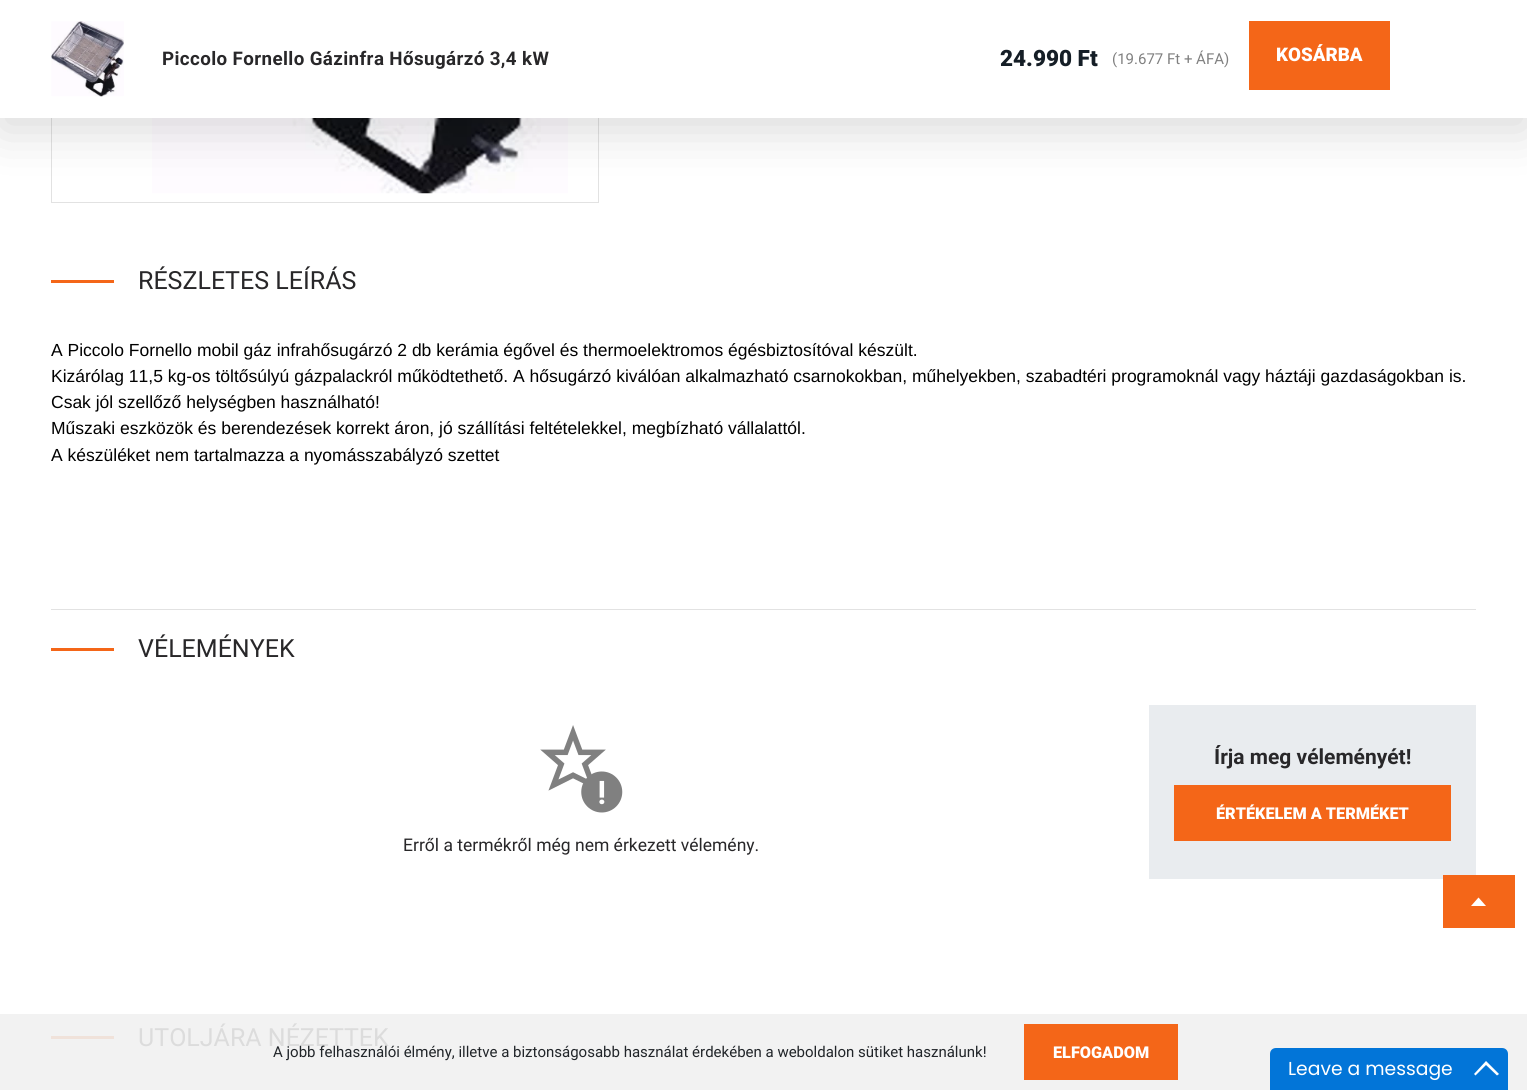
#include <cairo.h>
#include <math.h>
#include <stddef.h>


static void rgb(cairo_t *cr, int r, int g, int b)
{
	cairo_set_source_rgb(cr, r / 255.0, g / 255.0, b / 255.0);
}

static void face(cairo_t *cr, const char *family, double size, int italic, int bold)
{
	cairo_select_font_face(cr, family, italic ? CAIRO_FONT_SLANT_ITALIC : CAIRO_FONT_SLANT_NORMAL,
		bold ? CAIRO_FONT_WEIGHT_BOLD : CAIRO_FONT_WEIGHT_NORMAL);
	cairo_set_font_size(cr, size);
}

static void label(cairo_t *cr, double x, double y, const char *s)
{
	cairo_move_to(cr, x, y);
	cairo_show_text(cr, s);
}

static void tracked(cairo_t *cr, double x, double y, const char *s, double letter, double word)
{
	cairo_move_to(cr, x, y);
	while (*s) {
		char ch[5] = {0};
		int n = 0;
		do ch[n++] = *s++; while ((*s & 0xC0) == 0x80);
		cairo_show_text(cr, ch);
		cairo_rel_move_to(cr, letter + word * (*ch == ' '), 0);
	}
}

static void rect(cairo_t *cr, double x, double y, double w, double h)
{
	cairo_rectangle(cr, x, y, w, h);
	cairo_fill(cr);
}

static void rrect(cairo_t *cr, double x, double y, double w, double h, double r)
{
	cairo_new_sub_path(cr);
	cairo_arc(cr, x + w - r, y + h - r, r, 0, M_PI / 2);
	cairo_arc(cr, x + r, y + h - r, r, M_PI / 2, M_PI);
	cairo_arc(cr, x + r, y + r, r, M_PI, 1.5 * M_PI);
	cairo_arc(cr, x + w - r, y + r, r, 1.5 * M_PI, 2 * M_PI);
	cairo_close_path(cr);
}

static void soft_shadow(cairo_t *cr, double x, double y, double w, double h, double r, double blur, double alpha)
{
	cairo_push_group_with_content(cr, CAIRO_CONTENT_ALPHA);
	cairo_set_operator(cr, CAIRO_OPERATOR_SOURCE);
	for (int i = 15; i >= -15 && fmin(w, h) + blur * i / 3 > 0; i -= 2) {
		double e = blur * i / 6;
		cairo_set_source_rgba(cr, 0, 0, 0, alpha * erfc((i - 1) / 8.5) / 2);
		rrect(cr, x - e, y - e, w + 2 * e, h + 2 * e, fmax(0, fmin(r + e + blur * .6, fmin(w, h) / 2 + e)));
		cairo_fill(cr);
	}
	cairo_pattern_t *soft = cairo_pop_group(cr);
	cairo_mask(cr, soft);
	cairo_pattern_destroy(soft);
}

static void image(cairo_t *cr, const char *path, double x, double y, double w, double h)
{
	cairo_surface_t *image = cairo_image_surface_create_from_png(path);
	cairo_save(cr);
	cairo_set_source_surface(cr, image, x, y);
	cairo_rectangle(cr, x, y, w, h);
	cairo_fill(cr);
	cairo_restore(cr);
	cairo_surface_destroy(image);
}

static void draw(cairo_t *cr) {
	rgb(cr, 255, 255, 255);
	cairo_paint(cr);
	rgb(cr, 242, 242, 242);
	rect(cr, 0, 1014, 1527, 76);
	cairo_rectangle(cr, 51.5, -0.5, 547, 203);
	rgb(cr, 226, 226, 226);
	cairo_set_line_width(cr, 1);
	cairo_stroke(cr);
	image(cr, "image0.png", 152, 118, 416, 76);
	rgb(cr, 0, 0, 0);
	soft_shadow(cr, 0, 13, 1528, 117, 0, 25, 0.15);
	rgb(cr, 255, 255, 255);
	rect(cr, 0, 0, 1527, 118);
	image(cr, "image1.png", 51, 21, 73, 76);
	face(cr, "Roboto", 18.75, 0, 1);
	rgb(cr, 40, 39, 41);
	tracked(cr, 162, 65, "Piccolo Fornello Gázinfra Hősugárzó 3,4 kW", 0.4, 0);
	face(cr, "Roboto Black", 22.5, 0, 0);
	rgb(cr, 21, 30, 38);
	label(cr, 1000, 66, "24.990 Ft");
	face(cr, "Roboto", 15, 0, 0);
	rgb(cr, 128, 128, 128);
	label(cr, 1112, 64, "(19.677 Ft + ÁFA)");
	rgb(cr, 244, 102, 24);
	rect(cr, 1249, 21, 141, 69);
	face(cr, "Roboto Black", 18.75, 0, 0);
	rgb(cr, 255, 255, 255);
	label(cr, 1276, 61, "KOSÁRBA");
	rgb(cr, 244, 102, 24);
	rect(cr, 51, 280, 63, 3);
	face(cr, "Roboto", 25, 0, 0);
	rgb(cr, 40, 39, 41);
	label(cr, 138, 289, "RÉSZLETES LEÍRÁS");
	face(cr, "Liberation Sans", 17.5, 0, 0);
	rgb(cr, 0, 0, 0);
	label(cr, 51, 356, "A Piccolo Fornello mobil gáz infrahősugárzó 2 db kerámia égővel és thermoelektromos égésbiztosítóval készült.");
	label(cr, 51, 382, "Kizárólag 11,5 kg-os töltősúlyú gázpalackról működtethető. A hősugárzó kiválóan alkalmazható csarnokokban, műhelyekben, szabadtéri programoknál vagy háztáji gazdaságokban is.");
	label(cr, 51, 408, "Csak jól szellőző helységben használható!");
	label(cr, 51, 434, "Műszaki eszközök és berendezések korrekt áron, jó szállítási feltételekkel, megbízható vállalattól.");
	label(cr, 51, 461, "A készüléket nem tartalmazza a nyomásszabályzó szettet");
	rgb(cr, 226, 226, 226);
	rect(cr, 51, 609, 1425, 1);
	rgb(cr, 244, 102, 24);
	rect(cr, 51, 648, 63, 3);
	face(cr, "Roboto", 25, 0, 0);
	rgb(cr, 40, 39, 41);
	label(cr, 138, 657, "VÉLEMÉNYEK");
	rgb(cr, 233, 236, 239);
	rect(cr, 1149, 705, 327, 174);
	face(cr, "Roboto", 21, 0, 1);
	rgb(cr, 40, 39, 41);
	label(cr, 1214, 764, "Írja meg véleményét!");
	rgb(cr, 244, 102, 24);
	rect(cr, 1174, 785, 277, 56);
	face(cr, "Roboto Black", 16.25, 0, 0);
	rgb(cr, 255, 255, 255);
	label(cr, 1216, 819, "ÉRTÉKELEM A TERMÉKET");
	image(cr, "image2.png", 540, 725, 83, 88);
	face(cr, "Roboto", 17.5, 0, 0);
	rgb(cr, 40, 39, 41);
	label(cr, 403, 851, "Erről a termékről még nem érkezett vélemény.");
	rgb(cr, 244, 102, 24);
	rect(cr, 1443, 875, 72, 53);
	rgb(cr, 255, 255, 255);
	cairo_new_path(cr);
	cairo_move_to(cr, 1486, 906);
	cairo_line_to(cr, 1478.5, 897.5);
	cairo_line_to(cr, 1471, 906);
	cairo_close_path(cr);
	cairo_fill(cr);
	rgb(cr, 240, 226, 218);
	rect(cr, 51, 1036, 63, 3);
	face(cr, "Roboto", 25, 0, 0);
	rgb(cr, 220, 220, 220);
	label(cr, 138, 1046, "UTOLJÁRA NÉZETTEK");
	face(cr, "Roboto", 15, 0, 0);
	rgb(cr, 33, 37, 41);
	label(cr, 273, 1057, "A jobb felhasználói élmény, illetve a biztonságosabb használat érdekében a weboldalon sütiket használunk!");
	rgb(cr, 244, 102, 24);
	rect(cr, 1024, 1024, 154, 56);
	face(cr, "Roboto Black", 16.25, 0, 0);
	rgb(cr, 255, 255, 255);
	label(cr, 1053, 1058, "ELFOGADOM");
	rgb(cr, 2, 117, 216);
	cairo_new_path(cr);
	cairo_move_to(cr, 1276, 1048);
	cairo_line_to(cr, 1502, 1048);
	cairo_curve_to(cr, 1505.5, 1048, 1508, 1050.5, 1508, 1054);
	cairo_line_to(cr, 1508, 1090);
	cairo_line_to(cr, 1270, 1090);
	cairo_line_to(cr, 1270, 1054);
	cairo_curve_to(cr, 1270, 1050.5, 1272.5, 1048, 1276, 1048);
	cairo_close_path(cr);
	cairo_fill(cr);
	face(cr, "Poppins", 18.75, 0, 0);
	rgb(cr, 255, 255, 255);
	label(cr, 1288, 1075, "Leave a message");
	cairo_new_path(cr);
	cairo_move_to(cr, 1486, 1061);
	cairo_line_to(cr, 1499, 1074);
	cairo_line_to(cr, 1497, 1075.5);
	cairo_line_to(cr, 1486, 1065);
	cairo_line_to(cr, 1475.5, 1075.5);
	cairo_line_to(cr, 1474, 1074);
	cairo_close_path(cr);
	cairo_fill(cr);
}

int main(void) {
	cairo_surface_t *surface = cairo_image_surface_create(CAIRO_FORMAT_RGB24, 1527, 1090);
	cairo_t *cr = cairo_create(surface);
	cairo_font_options_t *options = cairo_font_options_create();
	cairo_font_options_set_hint_metrics(options, CAIRO_HINT_METRICS_OFF);
	cairo_font_options_set_hint_style(options, CAIRO_HINT_STYLE_NONE);
	cairo_set_font_options(cr, options);
	cairo_set_miter_limit(cr, 4);
	draw(cr);
	cairo_surface_write_to_png(surface, "render.png");
	cairo_font_options_destroy(options);
	cairo_destroy(cr);
	cairo_surface_destroy(surface);
	return 0;
}
